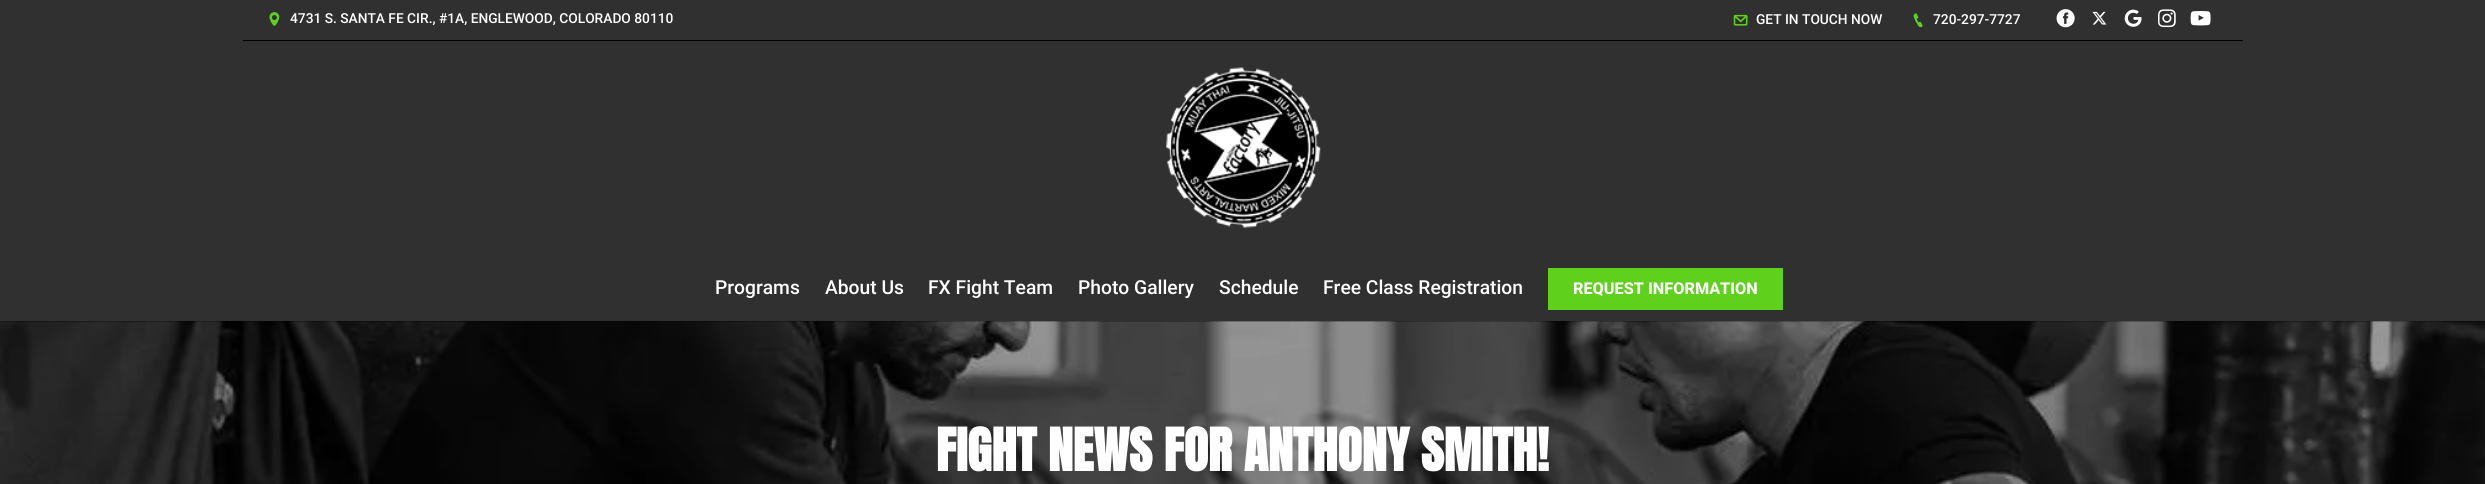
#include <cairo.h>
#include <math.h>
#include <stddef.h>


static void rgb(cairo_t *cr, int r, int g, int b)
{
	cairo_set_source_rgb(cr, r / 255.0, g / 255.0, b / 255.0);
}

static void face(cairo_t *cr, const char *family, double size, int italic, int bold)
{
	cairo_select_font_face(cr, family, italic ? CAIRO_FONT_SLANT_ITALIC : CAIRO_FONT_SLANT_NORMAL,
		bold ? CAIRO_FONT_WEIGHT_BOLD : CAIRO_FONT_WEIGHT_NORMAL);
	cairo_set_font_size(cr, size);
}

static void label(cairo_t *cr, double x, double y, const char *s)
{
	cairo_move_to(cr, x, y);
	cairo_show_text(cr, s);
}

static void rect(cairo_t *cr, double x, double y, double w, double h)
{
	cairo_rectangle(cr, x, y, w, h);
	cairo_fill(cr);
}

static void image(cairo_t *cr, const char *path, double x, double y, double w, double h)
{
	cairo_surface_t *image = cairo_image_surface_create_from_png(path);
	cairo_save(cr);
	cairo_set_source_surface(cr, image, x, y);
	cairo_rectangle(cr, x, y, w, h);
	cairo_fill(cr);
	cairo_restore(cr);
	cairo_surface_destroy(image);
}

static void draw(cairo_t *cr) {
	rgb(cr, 0, 0, 0);
	cairo_paint(cr);
	rgb(cr, 48, 48, 48);
	rect(cr, 0, 0, 2485, 321);
	rgb(cr, 0, 0, 0);
	rect(cr, 243, 40, 2000, 1);
	image(cr, "image0.png", 269, 12, 11, 14);
	face(cr, "Roboto Medium", 13.75, 0, 0);
	rgb(cr, 255, 255, 255);
	label(cr, 290, 23, "4731 S. SANTA FE CIR., #1A, ENGLEWOOD, COLORADO 80110");
	image(cr, "image1.png", 1733, 14, 15, 12);
	label(cr, 1756, 24, "GET IN TOUCH NOW");
	image(cr, "image2.png", 1913, 13, 10, 15);
	label(cr, 1933, 24, "720-297-7727");
	image(cr, "image3.png", 2056, 9, 19, 19);
	image(cr, "image4.png", 2092, 11, 15, 14);
	image(cr, "image5.png", 2124, 9, 18, 18);
	image(cr, "image6.png", 2158, 9, 18, 19);
	image(cr, "image7.png", 2190, 11, 21, 15);
	image(cr, "image8.png", 1166, 67, 155, 161);
	face(cr, "Roboto Medium", 19.25, 0, 0);
	label(cr, 715, 294, "Programs");
	label(cr, 825, 294, "About Us");
	label(cr, 928, 294, "FX Fight Team");
	label(cr, 1078, 294, "Photo Gallery");
	label(cr, 1219, 294, "Schedule");
	label(cr, 1323, 294, "Free Class Registration");
	rgb(cr, 95, 209, 29);
	rect(cr, 1548, 268, 235, 42);
	face(cr, "Roboto ExtraBold", 16.25, 0, 0);
	rgb(cr, 255, 255, 255);
	label(cr, 1573, 294, "REQUEST INFORMATION");
	image(cr, "image9.png", 0, 321, 2485, 163);
	face(cr, "Anton", 50, 0, 1);
	label(cr, 936, 471, "FIGHT NEWS FOR ANTHONY SMITH!");
}

int main(void) {
	cairo_surface_t *surface = cairo_image_surface_create(CAIRO_FORMAT_RGB24, 2485, 484);
	cairo_t *cr = cairo_create(surface);
	cairo_font_options_t *options = cairo_font_options_create();
	cairo_font_options_set_hint_metrics(options, CAIRO_HINT_METRICS_OFF);
	cairo_font_options_set_hint_style(options, CAIRO_HINT_STYLE_NONE);
	cairo_set_font_options(cr, options);
	cairo_set_miter_limit(cr, 4);
	draw(cr);
	cairo_surface_write_to_png(surface, "render.png");
	cairo_font_options_destroy(options);
	cairo_destroy(cr);
	cairo_surface_destroy(surface);
	return 0;
}
